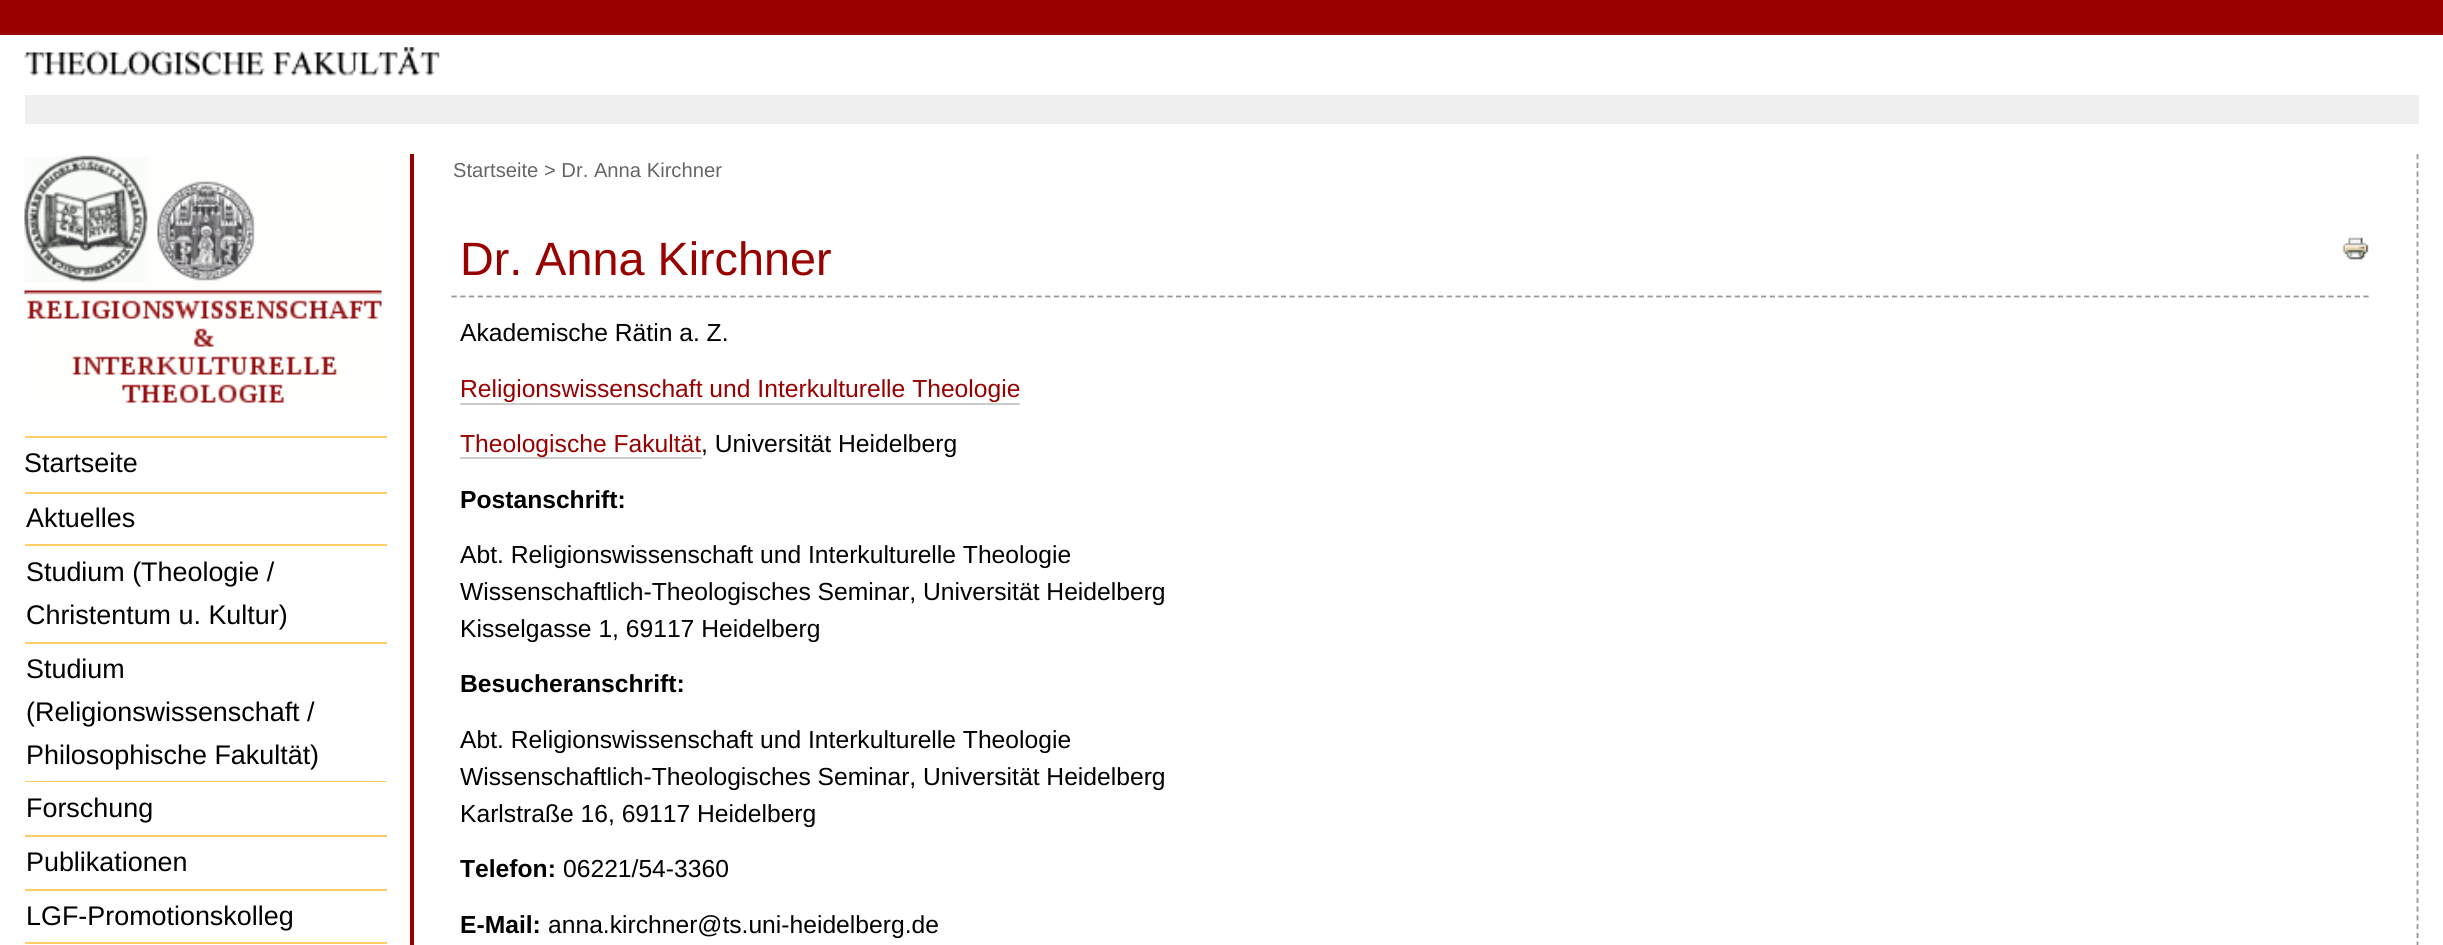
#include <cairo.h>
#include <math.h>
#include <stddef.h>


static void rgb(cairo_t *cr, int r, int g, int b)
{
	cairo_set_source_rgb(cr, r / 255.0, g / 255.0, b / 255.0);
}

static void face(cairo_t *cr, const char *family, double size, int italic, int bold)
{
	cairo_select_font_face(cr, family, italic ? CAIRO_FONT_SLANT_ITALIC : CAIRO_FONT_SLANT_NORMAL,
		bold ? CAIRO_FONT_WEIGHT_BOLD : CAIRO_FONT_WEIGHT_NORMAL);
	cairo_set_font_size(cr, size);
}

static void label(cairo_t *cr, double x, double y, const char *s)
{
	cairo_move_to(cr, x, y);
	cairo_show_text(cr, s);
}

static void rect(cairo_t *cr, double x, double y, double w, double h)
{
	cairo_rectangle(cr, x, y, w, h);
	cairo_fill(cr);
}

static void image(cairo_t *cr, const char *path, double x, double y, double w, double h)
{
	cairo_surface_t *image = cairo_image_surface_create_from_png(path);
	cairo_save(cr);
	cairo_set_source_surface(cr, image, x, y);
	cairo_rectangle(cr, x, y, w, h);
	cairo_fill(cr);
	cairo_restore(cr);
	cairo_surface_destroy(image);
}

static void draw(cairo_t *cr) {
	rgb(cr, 255, 255, 255);
	cairo_paint(cr);
	rgb(cr, 153, 0, 0);
	rect(cr, 0, 0, 2443, 35);
	image(cr, "image0.png", 24, 47, 416, 29);
	rgb(cr, 239, 239, 239);
	rect(cr, 25, 95, 2394, 29);
	image(cr, "image1.png", 24, 155, 358, 248);
	rgb(cr, 255, 204, 102);
	rect(cr, 25, 942, 362, 2);
	rect(cr, 25, 436, 362, 2);
	face(cr, "Liberation Sans", 26.9, 0, 0);
	rgb(cr, 0, 0, 0);
	label(cr, 24, 472, "Startseite");
	rgb(cr, 255, 204, 102);
	rect(cr, 25, 492, 362, 2);
	rgb(cr, 0, 0, 0);
	label(cr, 26, 527, "Aktuelles");
	rgb(cr, 255, 204, 102);
	rect(cr, 25, 544, 362, 2);
	rgb(cr, 0, 0, 0);
	label(cr, 26, 581, "Studium (Theologie /");
	label(cr, 26, 624, "Christentum u. Kultur)");
	rgb(cr, 255, 204, 102);
	rect(cr, 25, 642, 362, 2);
	rgb(cr, 0, 0, 0);
	label(cr, 26, 678, "Studium");
	label(cr, 26, 721, "(Religionswissenschaft /");
	label(cr, 26, 764, "Philosophische Fakultät)");
	rgb(cr, 255, 204, 102);
	rect(cr, 25, 781, 362, 1);
	rgb(cr, 0, 0, 0);
	label(cr, 26, 817, "Forschung");
	rgb(cr, 255, 204, 102);
	rect(cr, 25, 835, 362, 2);
	rgb(cr, 0, 0, 0);
	label(cr, 26, 871, "Publikationen");
	rgb(cr, 255, 204, 102);
	rect(cr, 25, 889, 362, 2);
	rgb(cr, 0, 0, 0);
	label(cr, 26, 925, "LGF-Promotionskolleg");
	rgb(cr, 153, 0, 0);
	rect(cr, 410, 154, 4, 791);
	face(cr, "Liberation Sans", 20.2, 0, 0);
	rgb(cr, 102, 102, 102);
	label(cr, 453, 177, "Startseite > Dr. Anna Kirchner");
	cairo_new_path(cr);
	cairo_move_to(cr, 451.5, 296.5);
	cairo_line_to(cr, 2369.5, 296.5);
	rgb(cr, 153, 153, 153);
	cairo_set_line_width(cr, 1.8);
	cairo_set_dash(cr, (double[]){5.25, 3.48}, 2, 0);
	cairo_stroke(cr);
	face(cr, "Liberation Sans", 46.75, 0, 0);
	rgb(cr, 153, 0, 0);
	label(cr, 460, 275, "Dr. Anna Kirchner");
	image(cr, "image2.png", 2342, 237, 27, 23);
	face(cr, "Liberation Sans", 24.65, 0, 0);
	rgb(cr, 0, 0, 0);
	label(cr, 460, 341, "Akademische Rätin a. Z.");
	rgb(cr, 153, 0, 0);
	label(cr, 460, 397, "Religionswissenschaft und Interkulturelle Theologie");
	rgb(cr, 204, 204, 204);
	rect(cr, 460, 403, 560, 2);
	rect(cr, 460, 457, 242, 2);
	rgb(cr, 153, 0, 0);
	label(cr, 460, 452, "Theologische Fakultät");
	rgb(cr, 0, 0, 0);
	label(cr, 701, 452, ", Universität Heidelberg");
	face(cr, "Liberation Sans", 24.65, 0, 1);
	label(cr, 460, 508, "Postanschrift:");
	face(cr, "Liberation Sans", 24.65, 0, 0);
	label(cr, 460, 563, "Abt. Religionswissenschaft und Interkulturelle Theologie");
	label(cr, 460, 600, "Wissenschaftlich-Theologisches Seminar, Universität Heidelberg");
	label(cr, 460, 637, "Kisselgasse 1, 69117 Heidelberg");
	face(cr, "Liberation Sans", 24.65, 0, 1);
	label(cr, 460, 692, "Besucheranschrift:");
	face(cr, "Liberation Sans", 24.65, 0, 0);
	label(cr, 460, 748, "Abt. Religionswissenschaft und Interkulturelle Theologie");
	label(cr, 460, 785, "Wissenschaftlich-Theologisches Seminar, Universität Heidelberg");
	label(cr, 460, 822, "Karlstraße 16, 69117 Heidelberg");
	face(cr, "Liberation Sans", 24.65, 0, 1);
	label(cr, 460, 877, "Telefon:");
	face(cr, "Liberation Sans", 24.65, 0, 0);
	label(cr, 563, 877, "06221/54-3360");
	face(cr, "Liberation Sans", 24.65, 0, 1);
	label(cr, 460, 933, "E-Mail:");
	face(cr, "Liberation Sans", 24.65, 0, 0);
	label(cr, 548, 933, "anna.kirchner@ts.uni-heidelberg.de");
	cairo_new_path(cr);
	cairo_move_to(cr, 2417.5, 154);
	cairo_line_to(cr, 2417.5, 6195);
	rgb(cr, 153, 153, 153);
	cairo_set_dash(cr, (double[]){5.25, 3.5}, 2, 0);
	cairo_stroke(cr);
}

int main(void) {
	cairo_surface_t *surface = cairo_image_surface_create(CAIRO_FORMAT_RGB24, 2443, 945);
	cairo_t *cr = cairo_create(surface);
	cairo_font_options_t *options = cairo_font_options_create();
	cairo_font_options_set_hint_metrics(options, CAIRO_HINT_METRICS_OFF);
	cairo_font_options_set_hint_style(options, CAIRO_HINT_STYLE_NONE);
	cairo_set_font_options(cr, options);
	cairo_set_miter_limit(cr, 4);
	draw(cr);
	cairo_surface_write_to_png(surface, "render.png");
	cairo_font_options_destroy(options);
	cairo_destroy(cr);
	cairo_surface_destroy(surface);
	return 0;
}
